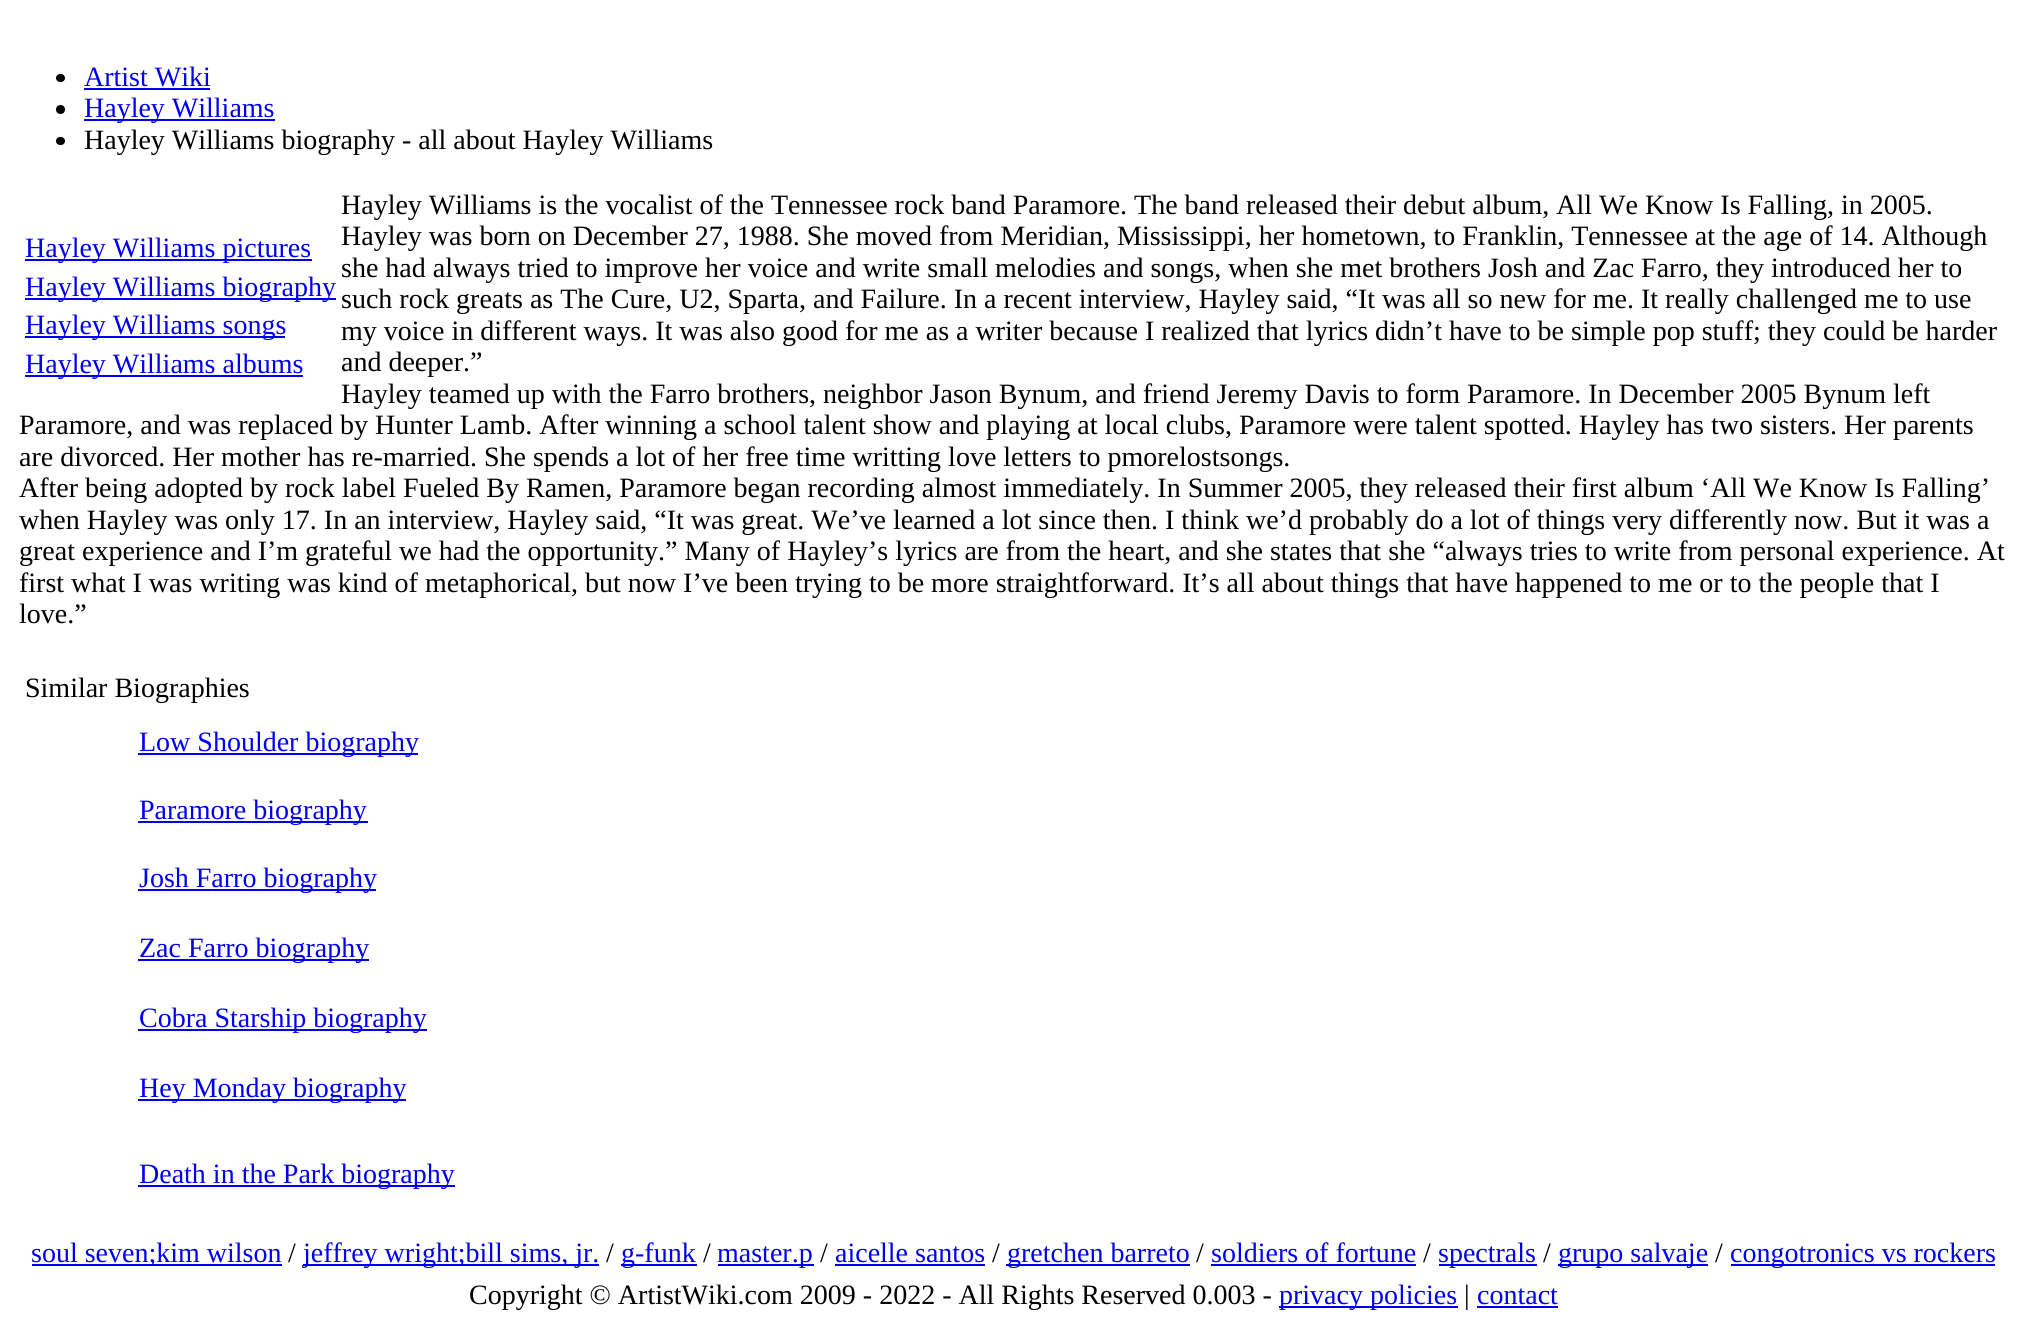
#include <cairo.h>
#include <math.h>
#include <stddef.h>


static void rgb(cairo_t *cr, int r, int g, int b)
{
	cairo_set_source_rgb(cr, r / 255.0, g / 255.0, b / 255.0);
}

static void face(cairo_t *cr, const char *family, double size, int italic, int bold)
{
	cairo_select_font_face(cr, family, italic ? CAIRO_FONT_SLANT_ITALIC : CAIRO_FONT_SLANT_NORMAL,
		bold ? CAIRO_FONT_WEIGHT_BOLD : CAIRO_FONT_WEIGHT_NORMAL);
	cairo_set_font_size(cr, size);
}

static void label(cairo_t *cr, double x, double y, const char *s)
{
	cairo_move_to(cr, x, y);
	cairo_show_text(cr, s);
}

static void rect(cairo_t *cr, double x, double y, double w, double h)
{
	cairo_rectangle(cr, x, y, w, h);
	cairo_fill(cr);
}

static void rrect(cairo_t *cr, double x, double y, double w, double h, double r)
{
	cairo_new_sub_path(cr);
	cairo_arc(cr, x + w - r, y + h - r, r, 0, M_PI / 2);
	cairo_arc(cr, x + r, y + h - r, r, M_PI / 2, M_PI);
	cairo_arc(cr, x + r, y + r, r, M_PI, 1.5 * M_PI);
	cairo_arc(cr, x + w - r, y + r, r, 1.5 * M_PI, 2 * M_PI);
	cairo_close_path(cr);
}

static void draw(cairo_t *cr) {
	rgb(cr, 255, 255, 255);
	cairo_paint(cr);
	rgb(cr, 0, 0, 0);
	rrect(cr, 56, 74, 9, 8, 4);
	cairo_fill(cr);
	face(cr, "Liberation Serif", 28, 0, 0);
	rgb(cr, 0, 0, 238);
	label(cr, 84, 86, "Artist Wiki");
	rect(cr, 84, 88, 126, 2);
	rgb(cr, 0, 0, 0);
	cairo_new_path(cr);
	cairo_arc(cr, 60.5, 109.5, 4.5, 0, 2 * M_PI);
	cairo_fill(cr);
	rgb(cr, 0, 0, 238);
	rect(cr, 84, 119, 191, 2);
	label(cr, 84, 117, "Hayley Williams");
	rgb(cr, 0, 0, 0);
	rrect(cr, 56, 137, 9, 8, 4);
	cairo_fill(cr);
	label(cr, 84, 149, "Hayley Williams biography - all about Hayley Williams");
	label(cr, 341, 214, "Hayley Williams is the vocalist of the Tennessee rock band Paramore. The band released their debut album, All We Know Is Falling, in 2005.");
	rgb(cr, 0, 0, 238);
	rect(cr, 25, 259, 287, 2);
	label(cr, 25, 257, "Hayley Williams pictures");
	rect(cr, 25, 298, 311, 2);
	label(cr, 25, 296, "Hayley Williams biography");
	rect(cr, 25, 336, 260, 2);
	label(cr, 25, 334, "Hayley Williams songs");
	rect(cr, 25, 375, 278, 2);
	label(cr, 25, 373, "Hayley Williams albums");
	rgb(cr, 0, 0, 0);
	label(cr, 341, 245, "Hayley was born on December 27, 1988. She moved from Meridian, Mississippi, her hometown, to Franklin, Tennessee at the age of 14. Although");
	label(cr, 341, 277, "she had always tried to improve her voice and write small melodies and songs, when she met brothers Josh and Zac Farro, they introduced her to");
	label(cr, 341, 308, "such rock greats as The Cure, U2, Sparta, and Failure. In a recent interview, Hayley said, “It was all so new for me. It really challenged me to use");
	label(cr, 341, 340, "my voice in different ways. It was also good for me as a writer because I realized that lyrics didn’t have to be simple pop stuff; they could be harder");
	label(cr, 341, 371, "and deeper.”");
	label(cr, 341, 403, "Hayley teamed up with the Farro brothers, neighbor Jason Bynum, and friend Jeremy Davis to form Paramore. In December 2005 Bynum left");
	label(cr, 19, 434, "Paramore, and was replaced by Hunter Lamb. After winning a school talent show and playing at local clubs, Paramore were talent spotted. Hayley has two sisters. Her parents");
	label(cr, 19, 466, "are divorced. Her mother has re-married. She spends a lot of her free time writting love letters to pmorelostsongs.");
	label(cr, 19, 497, "After being adopted by rock label Fueled By Ramen, Paramore began recording almost immediately. In Summer 2005, they released their first album ‘All We Know Is Falling’");
	label(cr, 19, 529, "when Hayley was only 17. In an interview, Hayley said, “It was great. We’ve learned a lot since then. I think we’d probably do a lot of things very differently now. But it was a");
	label(cr, 19, 560, "great experience and I’m grateful we had the opportunity.” Many of Hayley’s lyrics are from the heart, and she states that she “always tries to write from personal experience. At");
	label(cr, 19, 592, "first what I was writing was kind of metaphorical, but now I’ve been trying to be more straightforward. It’s all about things that have happened to me or to the people that I");
	label(cr, 19, 623, "love.”");
	label(cr, 25, 697, "Similar Biographies");
	rgb(cr, 0, 0, 238);
	rect(cr, 138, 753, 280, 2);
	label(cr, 139, 751, "Low Shoulder biography");
	rect(cr, 138, 821, 230, 2);
	label(cr, 139, 819, "Paramore biography");
	rect(cr, 138, 889, 238, 2);
	label(cr, 139, 887, "Josh Farro biography");
	rect(cr, 138, 959, 231, 2);
	label(cr, 139, 957, "Zac Farro biography");
	rect(cr, 138, 1029, 289, 2);
	label(cr, 139, 1027, "Cobra Starship biography");
	rect(cr, 138, 1099, 268, 2);
	label(cr, 139, 1097, "Hey Monday biography");
	rect(cr, 138, 1185, 317, 2);
	label(cr, 139, 1183, "Death in the Park biography");
	rect(cr, 32, 1264, 250, 2);
	label(cr, 31, 1262, "soul seven;kim wilson");
	rgb(cr, 0, 0, 0);
	label(cr, 288, 1262, "/");
	rgb(cr, 0, 0, 238);
	rect(cr, 303, 1264, 296, 2);
	label(cr, 303, 1262, "jeffrey wright;bill sims, jr.");
	rgb(cr, 0, 0, 0);
	label(cr, 606, 1262, "/");
	rgb(cr, 0, 0, 238);
	rect(cr, 621, 1264, 76, 2);
	label(cr, 621, 1262, "g-funk");
	rgb(cr, 0, 0, 0);
	label(cr, 703, 1262, "/");
	rgb(cr, 0, 0, 238);
	rect(cr, 718, 1264, 96, 2);
	label(cr, 717, 1262, "master.p");
	rgb(cr, 0, 0, 0);
	label(cr, 820, 1262, "/");
	rgb(cr, 0, 0, 238);
	label(cr, 835, 1262, "aicelle santos");
	rect(cr, 835, 1264, 150, 2);
	rgb(cr, 0, 0, 0);
	label(cr, 992, 1262, "/");
	rgb(cr, 0, 0, 238);
	rect(cr, 1006, 1264, 184, 2);
	label(cr, 1007, 1262, "gretchen barreto");
	rgb(cr, 0, 0, 0);
	label(cr, 1196, 1262, "/");
	rgb(cr, 0, 0, 238);
	label(cr, 1211, 1262, "soldiers of fortune");
	rect(cr, 1211, 1264, 205, 2);
	rgb(cr, 0, 0, 0);
	label(cr, 1423, 1262, "/");
	rgb(cr, 0, 0, 238);
	rect(cr, 1439, 1264, 98, 2);
	label(cr, 1438, 1262, "spectrals");
	rgb(cr, 0, 0, 0);
	label(cr, 1543, 1262, "/");
	rgb(cr, 0, 0, 238);
	rect(cr, 1558, 1264, 150, 2);
	label(cr, 1558, 1262, "grupo salvaje");
	rgb(cr, 0, 0, 0);
	label(cr, 1715, 1262, "/");
	rgb(cr, 0, 0, 238);
	rect(cr, 1731, 1264, 264, 2);
	label(cr, 1730, 1262, "congotronics vs rockers");
	rgb(cr, 0, 0, 0);
	label(cr, 469, 1304, "Copyright © ArtistWiki.com 2009 - 2022 - All Rights Reserved 0.003 -");
	rgb(cr, 0, 0, 238);
	rect(cr, 1279, 1306, 179, 2);
	label(cr, 1279, 1304, "privacy policies");
	rgb(cr, 0, 0, 0);
	label(cr, 1464, 1304, "|");
	rgb(cr, 0, 0, 238);
	label(cr, 1477, 1304, "contact");
	rect(cr, 1477, 1306, 81, 2);
}

int main(void) {
	cairo_surface_t *surface = cairo_image_surface_create(CAIRO_FORMAT_RGB24, 2025, 1330);
	cairo_t *cr = cairo_create(surface);
	cairo_font_options_t *options = cairo_font_options_create();
	cairo_font_options_set_hint_metrics(options, CAIRO_HINT_METRICS_OFF);
	cairo_font_options_set_hint_style(options, CAIRO_HINT_STYLE_NONE);
	cairo_set_font_options(cr, options);
	cairo_set_miter_limit(cr, 4);
	draw(cr);
	cairo_surface_write_to_png(surface, "render.png");
	cairo_font_options_destroy(options);
	cairo_destroy(cr);
	cairo_surface_destroy(surface);
	return 0;
}
